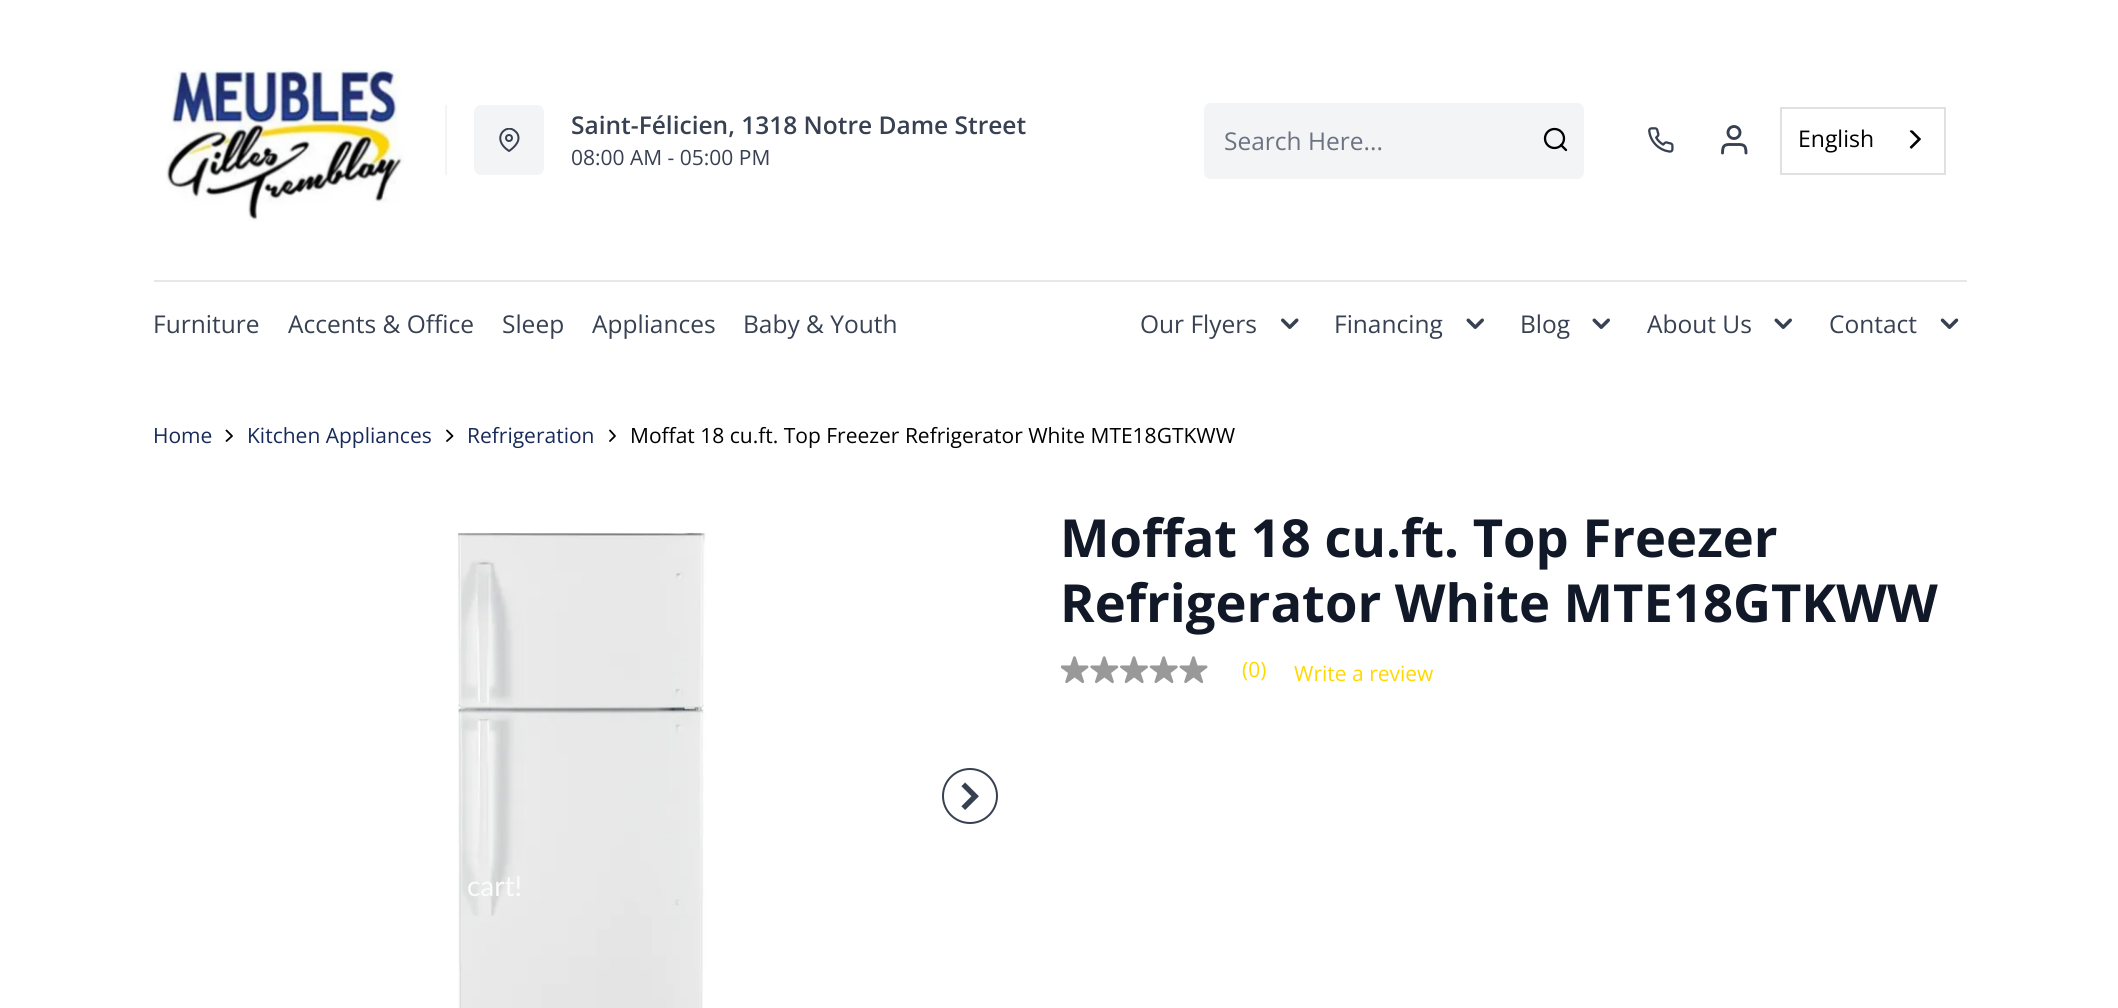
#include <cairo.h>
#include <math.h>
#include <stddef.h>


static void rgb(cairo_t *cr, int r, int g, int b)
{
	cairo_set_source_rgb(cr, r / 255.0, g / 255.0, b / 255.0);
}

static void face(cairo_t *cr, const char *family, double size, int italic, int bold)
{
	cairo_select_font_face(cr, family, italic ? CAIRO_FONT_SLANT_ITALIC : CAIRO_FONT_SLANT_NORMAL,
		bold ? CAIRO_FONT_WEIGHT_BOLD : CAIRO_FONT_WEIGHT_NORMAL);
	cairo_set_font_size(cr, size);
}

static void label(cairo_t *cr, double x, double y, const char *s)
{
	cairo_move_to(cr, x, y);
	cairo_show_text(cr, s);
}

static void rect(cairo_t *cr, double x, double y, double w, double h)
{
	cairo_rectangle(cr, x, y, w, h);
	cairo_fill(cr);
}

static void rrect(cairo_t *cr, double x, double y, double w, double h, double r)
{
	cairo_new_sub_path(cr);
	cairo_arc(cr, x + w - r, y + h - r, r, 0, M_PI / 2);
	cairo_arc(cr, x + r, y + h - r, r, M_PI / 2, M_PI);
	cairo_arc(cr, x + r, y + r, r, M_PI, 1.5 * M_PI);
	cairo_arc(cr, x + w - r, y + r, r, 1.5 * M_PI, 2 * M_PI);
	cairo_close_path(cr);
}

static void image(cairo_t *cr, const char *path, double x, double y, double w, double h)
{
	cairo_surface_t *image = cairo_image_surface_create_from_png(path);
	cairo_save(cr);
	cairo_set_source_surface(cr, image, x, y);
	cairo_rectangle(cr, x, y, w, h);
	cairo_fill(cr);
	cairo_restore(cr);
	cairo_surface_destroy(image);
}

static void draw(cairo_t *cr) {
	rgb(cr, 255, 255, 255);
	cairo_paint(cr);
	image(cr, "image0.png", 166, 68, 238, 153);
	rgb(cr, 243, 244, 246);
	rect(cr, 445, 105, 2, 70);
	rrect(cr, 474, 105, 70, 70, 7);
	cairo_fill(cr);
	cairo_save(cr);
	cairo_rectangle(cr, 497, 128, 25, 24);
	cairo_clip(cr);
	cairo_new_path(cr);
	cairo_move_to(cr, 518.5, 138);
	cairo_curve_to(cr, 518.5, 145, 509, 151, 509, 151);
	cairo_curve_to(cr, 490, 138.5, 506.5, 122, 515.5, 131.5);
	cairo_curve_to(cr, 517.5, 133, 518.5, 135.5, 518.5, 138);
	cairo_close_path(cr);
	rgb(cr, 55, 65, 81);
	cairo_set_line_cap(cr, CAIRO_LINE_CAP_ROUND);
	cairo_set_line_join(cr, CAIRO_LINE_JOIN_ROUND);
	cairo_stroke(cr);
	cairo_restore(cr);
	cairo_arc(cr, 509, 138, 3, 0, 2 * M_PI);
	rgb(cr, 55, 65, 81);
	cairo_stroke(cr);
	face(cr, "Open Sans SemiBold", 24.5, 0, 0);
	label(cr, 571, 134, "Saint-Félicien, 1318 Notre Dame Street");
	face(cr, "Open Sans", 21, 0, 0);
	label(cr, 571, 165, "08:00 AM - 05:00 PM");
	rgb(cr, 243, 244, 246);
	rrect(cr, 1204, 103, 380, 76, 7);
	cairo_fill(cr);
	face(cr, "Open Sans", 24.5, 0, 0);
	rgb(cr, 107, 114, 128);
	label(cr, 1224, 150, "Search Here...");
	cairo_new_path(cr);
	cairo_arc(cr, 1554.5, 138.5, 9.5, 0, 2 * M_PI);
	rgb(cr, 0, 0, 0);
	cairo_set_line_width(cr, 2.3);
	cairo_stroke(cr);
	cairo_new_path(cr);
	cairo_move_to(cr, 1566, 150);
	cairo_line_to(cr, 1561, 145);
	cairo_set_line_cap(cr, CAIRO_LINE_CAP_ROUND);
	cairo_set_line_join(cr, CAIRO_LINE_JOIN_ROUND);
	cairo_stroke(cr);
	image(cr, "image1.png", 1648, 127, 26, 26);
	cairo_new_path(cr);
	cairo_move_to(cr, 1746, 153);
	cairo_curve_to(cr, 1746, 143.5, 1742.5, 144.5, 1734, 144.5);
	cairo_curve_to(cr, 1726, 144.5, 1722.5, 143.5, 1722.5, 153);
	rgb(cr, 55, 65, 81);
	cairo_set_line_width(cr, 2.9);
	cairo_stroke(cr);
	cairo_arc(cr, 1734, 132.5, 6, 0, 2 * M_PI);
	cairo_set_line_cap(cr, CAIRO_LINE_CAP_BUTT);
	cairo_set_line_join(cr, CAIRO_LINE_JOIN_MITER);
	cairo_stroke(cr);
	cairo_rectangle(cr, 1781, 108, 164, 66);
	rgb(cr, 224, 224, 224);
	cairo_set_line_width(cr, 2);
	cairo_stroke(cr);
	face(cr, "Open Sans", 23, 0, 0);
	rgb(cr, 0, 0, 0);
	label(cr, 1798, 147, "English");
	image(cr, "image2.png", 1909, 130, 12, 19);
	rgb(cr, 229, 231, 235);
	rect(cr, 154, 280, 1813, 2);
	face(cr, "Open Sans", 24.5, 0, 0);
	rgb(cr, 55, 65, 81);
	label(cr, 153, 333, "Furniture");
	label(cr, 288, 333, "Accents & Office");
	label(cr, 502, 333, "Sleep");
	label(cr, 592, 333, "Appliances");
	label(cr, 743, 333, "Baby & Youth");
	label(cr, 1140, 333, "Our Flyers");
	image(cr, "image3.png", 1281, 318, 18, 11);
	label(cr, 1334, 333, "Financing");
	image(cr, "image4.png", 1466, 318, 18, 11);
	label(cr, 1520, 333, "Blog");
	image(cr, "image4.png", 1592, 318, 18, 11);
	label(cr, 1647, 333, "About Us");
	image(cr, "image4.png", 1774, 318, 18, 11);
	label(cr, 1829, 333, "Contact");
	image(cr, "image5.png", 1940, 318, 19, 11);
	face(cr, "Open Sans", 21, 0, 0);
	rgb(cr, 24, 42, 90);
	label(cr, 153, 443, "Home");
	cairo_new_path(cr);
	cairo_move_to(cr, 226.5, 441);
	cairo_line_to(cr, 232, 436);
	cairo_line_to(cr, 226.5, 430.5);
	rgb(cr, 0, 0, 0);
	cairo_set_line_width(cr, 1.8);
	cairo_set_line_cap(cr, CAIRO_LINE_CAP_ROUND);
	cairo_set_line_join(cr, CAIRO_LINE_JOIN_ROUND);
	cairo_stroke(cr);
	rgb(cr, 24, 42, 90);
	label(cr, 247, 443, "Kitchen Appliances");
	cairo_new_path(cr);
	cairo_move_to(cr, 447, 441);
	cairo_line_to(cr, 452.5, 436);
	cairo_line_to(cr, 447, 430.5);
	rgb(cr, 0, 0, 0);
	cairo_stroke(cr);
	rgb(cr, 24, 42, 90);
	label(cr, 467, 443, "Refrigeration");
	cairo_new_path(cr);
	cairo_move_to(cr, 610, 441);
	cairo_line_to(cr, 615, 436);
	cairo_line_to(cr, 610, 430.5);
	rgb(cr, 0, 0, 0);
	cairo_stroke(cr);
	label(cr, 630, 443, "Moffat 18 cu.ft. Top Freezer Refrigerator White MTE18GTKWW");
	image(cr, "image6.png", 457, 532, 250, 476);
	cairo_arc(cr, 970, 796, 27, 0, 2 * M_PI);
	rgb(cr, 55, 65, 81);
	cairo_set_line_width(cr, 2);
	cairo_set_line_cap(cr, CAIRO_LINE_CAP_BUTT);
	cairo_set_line_join(cr, CAIRO_LINE_JOIN_MITER);
	cairo_stroke(cr);
	image(cr, "image7.png", 961, 782, 18, 28);
	face(cr, "Open Sans", 52.5, 0, 1);
	rgb(cr, 17, 24, 39);
	label(cr, 1060, 557, "Moffat 18 cu.ft. Top Freezer");
	label(cr, 1060, 622, "Refrigerator White MTE18GTKWW");
	image(cr, "image8.png", 1061, 656, 28, 28);
	image(cr, "image9.png", 1090, 656, 29, 28);
	image(cr, "image10.png", 1120, 656, 28, 28);
	image(cr, "image11.png", 1149, 656, 29, 28);
	image(cr, "image12.png", 1179, 656, 29, 28);
	face(cr, "Open Sans", 21, 0, 0);
	rgb(cr, 255, 216, 0);
	label(cr, 1242, 677, "(0)");
	label(cr, 1294, 681, "Write a review");
	face(cr, "Lato", 28, 0, 0);
	rgb(cr, 251, 251, 251);
	label(cr, 467, 896, "cart!");
}

int main(void) {
	cairo_surface_t *surface = cairo_image_surface_create(CAIRO_FORMAT_RGB24, 2118, 1008);
	cairo_t *cr = cairo_create(surface);
	cairo_font_options_t *options = cairo_font_options_create();
	cairo_font_options_set_hint_metrics(options, CAIRO_HINT_METRICS_OFF);
	cairo_font_options_set_hint_style(options, CAIRO_HINT_STYLE_NONE);
	cairo_set_font_options(cr, options);
	cairo_set_miter_limit(cr, 4);
	draw(cr);
	cairo_surface_write_to_png(surface, "render.png");
	cairo_font_options_destroy(options);
	cairo_destroy(cr);
	cairo_surface_destroy(surface);
	return 0;
}
